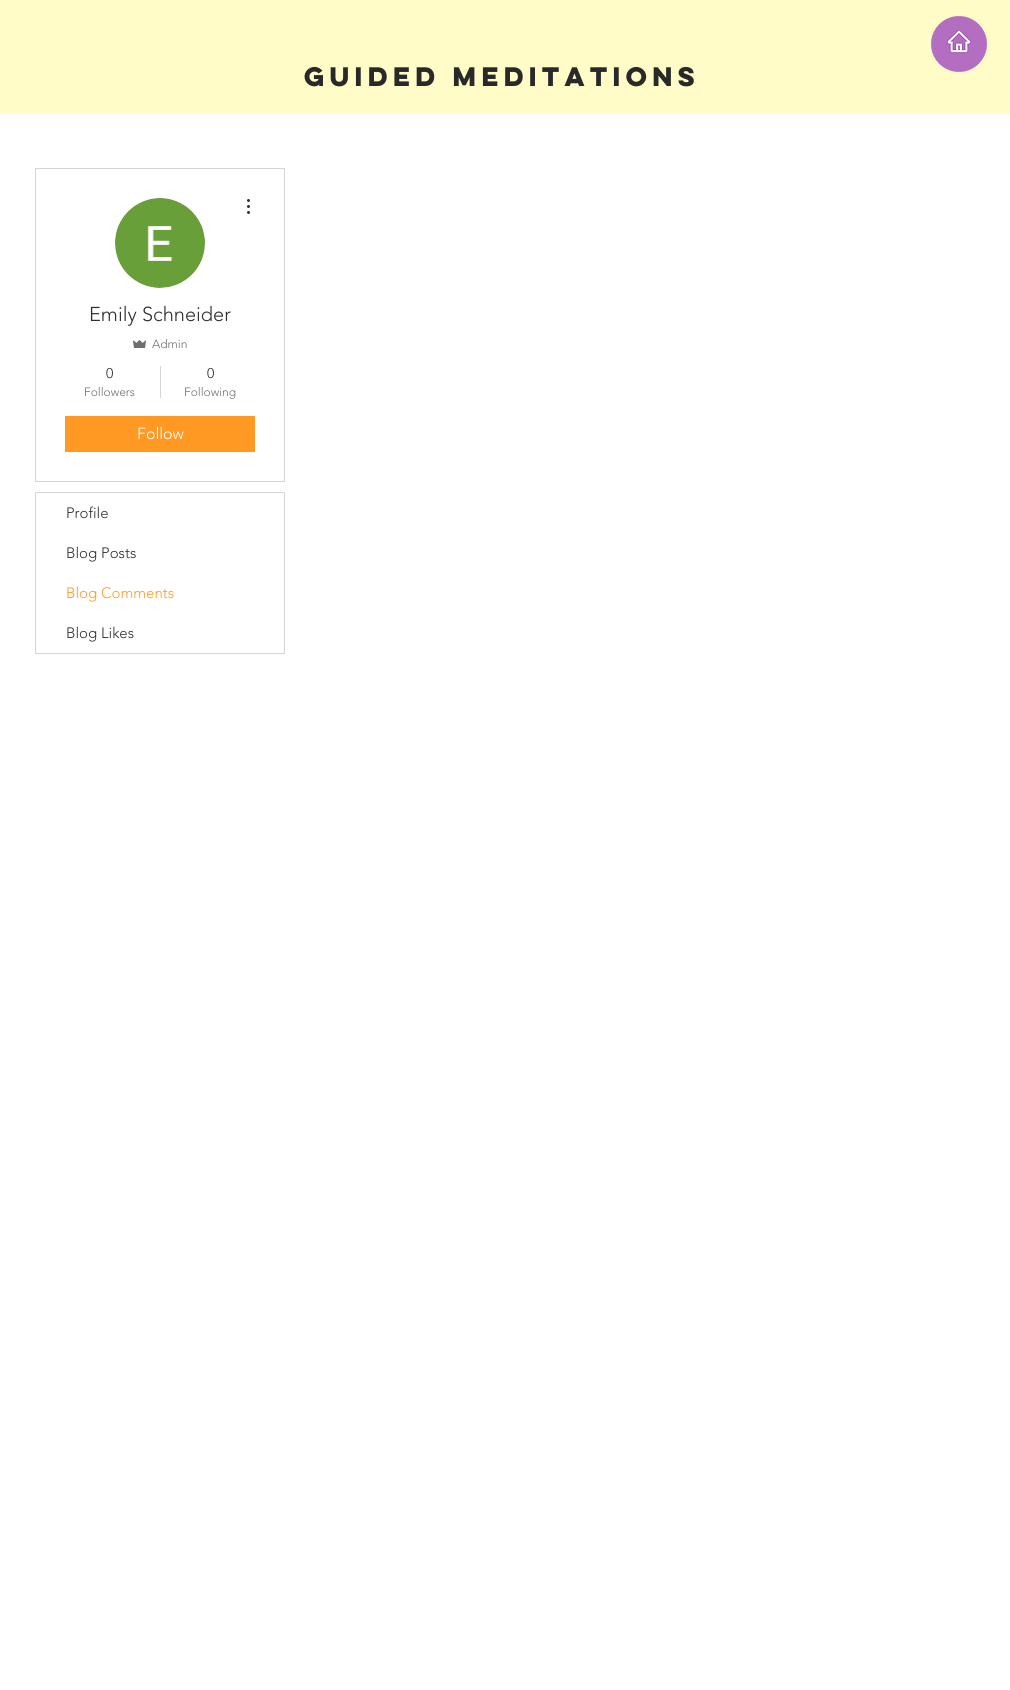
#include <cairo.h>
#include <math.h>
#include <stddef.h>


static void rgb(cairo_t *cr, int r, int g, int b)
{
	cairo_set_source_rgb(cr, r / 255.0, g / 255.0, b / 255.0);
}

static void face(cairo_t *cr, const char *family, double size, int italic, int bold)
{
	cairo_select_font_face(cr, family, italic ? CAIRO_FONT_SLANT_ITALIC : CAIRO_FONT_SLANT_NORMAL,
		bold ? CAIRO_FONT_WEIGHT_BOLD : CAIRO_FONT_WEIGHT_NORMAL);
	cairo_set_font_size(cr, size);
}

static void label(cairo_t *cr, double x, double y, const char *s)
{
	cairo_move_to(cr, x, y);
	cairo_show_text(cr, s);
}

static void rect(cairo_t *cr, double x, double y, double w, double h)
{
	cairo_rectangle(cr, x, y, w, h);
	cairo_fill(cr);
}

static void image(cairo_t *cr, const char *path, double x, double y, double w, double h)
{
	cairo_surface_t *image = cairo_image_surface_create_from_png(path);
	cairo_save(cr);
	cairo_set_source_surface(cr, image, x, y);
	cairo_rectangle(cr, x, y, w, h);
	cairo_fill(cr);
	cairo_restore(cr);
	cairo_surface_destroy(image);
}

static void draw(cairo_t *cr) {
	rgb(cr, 255, 255, 255);
	cairo_paint(cr);
	rgb(cr, 255, 252, 199);
	rect(cr, 0, 0, 1010, 114);
	image(cr, "image0.png", 931, 16, 56, 56);
	face(cr, "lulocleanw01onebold", 24, 0, 1);
	rgb(cr, 41, 41, 41);
	label(cr, 304, 86, "GUIDED MEDITATIONS");
	cairo_rectangle(cr, 35.5, 168.5, 249, 313);
	rgb(cr, 214, 213, 213);
	cairo_set_line_width(cr, 1);
	cairo_stroke(cr);
	rgb(cr, 216, 216, 216);
	cairo_arc(cr, 160, 243, 45, 0, 2 * M_PI);
	cairo_fill(cr);
	image(cr, "image1.png", 115, 198, 90, 90);
	image(cr, "image2.png", 247, 199, 3, 15);
	face(cr, "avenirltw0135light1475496 Light", 20, 0, 0);
	rgb(cr, 48, 47, 47);
	label(cr, 89, 321, "Emily Schneider");
	image(cr, "image3.png", 133, 340, 13, 8);
	face(cr, "avenirltw0135light1475496 Light", 12, 0, 0);
	rgb(cr, 110, 109, 109);
	label(cr, 152, 348, "Admin");
	face(cr, "avenirltw0135light1475496 Light", 14, 0, 0);
	rgb(cr, 48, 47, 47);
	label(cr, 106, 378, "0");
	face(cr, "avenirltw0135light1475496 Light", 12, 0, 0);
	rgb(cr, 110, 109, 109);
	label(cr, 84, 396, "Followers");
	rgb(cr, 214, 213, 213);
	rect(cr, 160, 366, 1, 32);
	face(cr, "avenirltw0135light1475496 Light", 14, 0, 0);
	rgb(cr, 48, 47, 47);
	label(cr, 207, 378, "0");
	face(cr, "avenirltw0135light1475496 Light", 12, 0, 0);
	rgb(cr, 110, 109, 109);
	label(cr, 184, 396, "Following");
	rgb(cr, 255, 153, 36);
	rect(cr, 65, 416, 190, 36);
	face(cr, "avenirltw0135light1475496 Light", 16, 0, 0);
	rgb(cr, 255, 255, 255);
	label(cr, 137, 439, "Follow");
	cairo_rectangle(cr, 35.5, 492.5, 249, 161);
	rgb(cr, 214, 213, 213);
	cairo_stroke(cr);
	face(cr, "avenirltw0135light1475496 Light", 15, 0, 0);
	rgb(cr, 48, 47, 47);
	label(cr, 66, 518, "Profile");
	label(cr, 66, 558, "Blog Posts");
	rgb(cr, 255, 153, 36);
	label(cr, 66, 598, "Blog Comments");
	rgb(cr, 48, 47, 47);
	label(cr, 66, 638, "Blog Likes");
}

int main(void) {
	cairo_surface_t *surface = cairo_image_surface_create(CAIRO_FORMAT_RGB24, 1010, 1690);
	cairo_t *cr = cairo_create(surface);
	cairo_font_options_t *options = cairo_font_options_create();
	cairo_font_options_set_hint_metrics(options, CAIRO_HINT_METRICS_OFF);
	cairo_font_options_set_hint_style(options, CAIRO_HINT_STYLE_NONE);
	cairo_set_font_options(cr, options);
	cairo_set_miter_limit(cr, 4);
	draw(cr);
	cairo_surface_write_to_png(surface, "render.png");
	cairo_font_options_destroy(options);
	cairo_destroy(cr);
	cairo_surface_destroy(surface);
	return 0;
}
